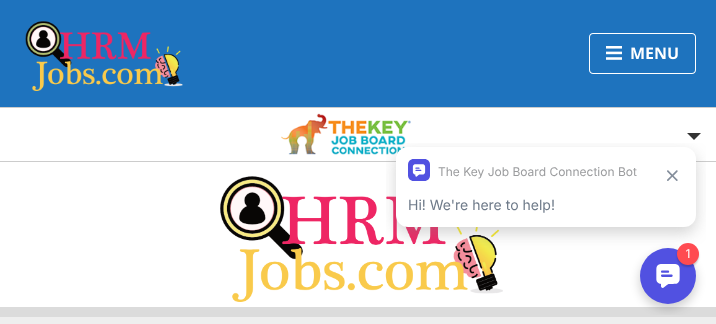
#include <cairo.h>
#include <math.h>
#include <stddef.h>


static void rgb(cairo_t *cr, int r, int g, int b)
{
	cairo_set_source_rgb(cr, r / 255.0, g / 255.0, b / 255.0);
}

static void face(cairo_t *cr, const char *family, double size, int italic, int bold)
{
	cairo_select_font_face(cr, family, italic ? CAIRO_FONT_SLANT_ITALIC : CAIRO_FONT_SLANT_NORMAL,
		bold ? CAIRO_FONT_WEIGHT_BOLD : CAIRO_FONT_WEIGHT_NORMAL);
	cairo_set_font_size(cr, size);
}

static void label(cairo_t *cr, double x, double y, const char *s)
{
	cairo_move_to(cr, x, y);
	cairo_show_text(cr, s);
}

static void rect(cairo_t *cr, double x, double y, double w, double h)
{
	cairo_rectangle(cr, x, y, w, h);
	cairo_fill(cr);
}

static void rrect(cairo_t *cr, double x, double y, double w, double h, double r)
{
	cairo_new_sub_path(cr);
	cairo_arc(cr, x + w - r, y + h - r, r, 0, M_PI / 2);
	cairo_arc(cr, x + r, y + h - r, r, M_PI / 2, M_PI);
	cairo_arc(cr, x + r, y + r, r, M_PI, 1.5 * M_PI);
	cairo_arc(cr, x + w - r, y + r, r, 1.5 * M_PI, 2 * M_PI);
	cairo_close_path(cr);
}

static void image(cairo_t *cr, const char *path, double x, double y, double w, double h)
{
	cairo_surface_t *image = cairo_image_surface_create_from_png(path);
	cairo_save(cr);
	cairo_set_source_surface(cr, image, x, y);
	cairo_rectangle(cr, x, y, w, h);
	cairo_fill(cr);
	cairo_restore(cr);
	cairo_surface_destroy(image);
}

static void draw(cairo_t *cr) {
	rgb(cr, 238, 238, 238);
	cairo_paint(cr);
	rgb(cr, 255, 255, 255);
	rect(cr, 0, 162, 716, 145);
	rgb(cr, 219, 219, 219);
	rect(cr, 0, 307, 716, 10);
	rgb(cr, 30, 115, 190);
	rect(cr, 0, 0, 716, 107);
	image(cr, "image0.png", 25, 21, 158, 70);
	rrect(cr, 589.5, 33.5, 106, 40, 3.5);
	rgb(cr, 255, 255, 255);
	cairo_set_line_width(cr, 1);
	cairo_stroke(cr);
	image(cr, "image1.png", 606, 46, 16, 14);
	face(cr, "Open Sans", 16, 0, 1);
	label(cr, 630, 59, "MENU");
	rect(cr, 0, 108, 716, 53);
	rgb(cr, 204, 204, 204);
	rect(cr, 0, 107, 716, 1);
	rect(cr, 0, 161, 716, 1);
	image(cr, "image2.png", 281, 113, 130, 42);
	rgb(cr, 51, 51, 51);
	cairo_new_path(cr);
	cairo_move_to(cr, 687, 133);
	cairo_line_to(cr, 701, 133);
	cairo_line_to(cr, 694, 140);
	cairo_close_path(cr);
	cairo_fill(cr);
	image(cr, "image3.png", 220, 176, 283, 126);
	image(cr, "image4.png", 386, 143, 320, 172);
}

int main(void) {
	cairo_surface_t *surface = cairo_image_surface_create(CAIRO_FORMAT_RGB24, 716, 324);
	cairo_t *cr = cairo_create(surface);
	cairo_font_options_t *options = cairo_font_options_create();
	cairo_font_options_set_hint_metrics(options, CAIRO_HINT_METRICS_OFF);
	cairo_font_options_set_hint_style(options, CAIRO_HINT_STYLE_NONE);
	cairo_set_font_options(cr, options);
	cairo_set_miter_limit(cr, 4);
	draw(cr);
	cairo_surface_write_to_png(surface, "render.png");
	cairo_font_options_destroy(options);
	cairo_destroy(cr);
	cairo_surface_destroy(surface);
	return 0;
}
